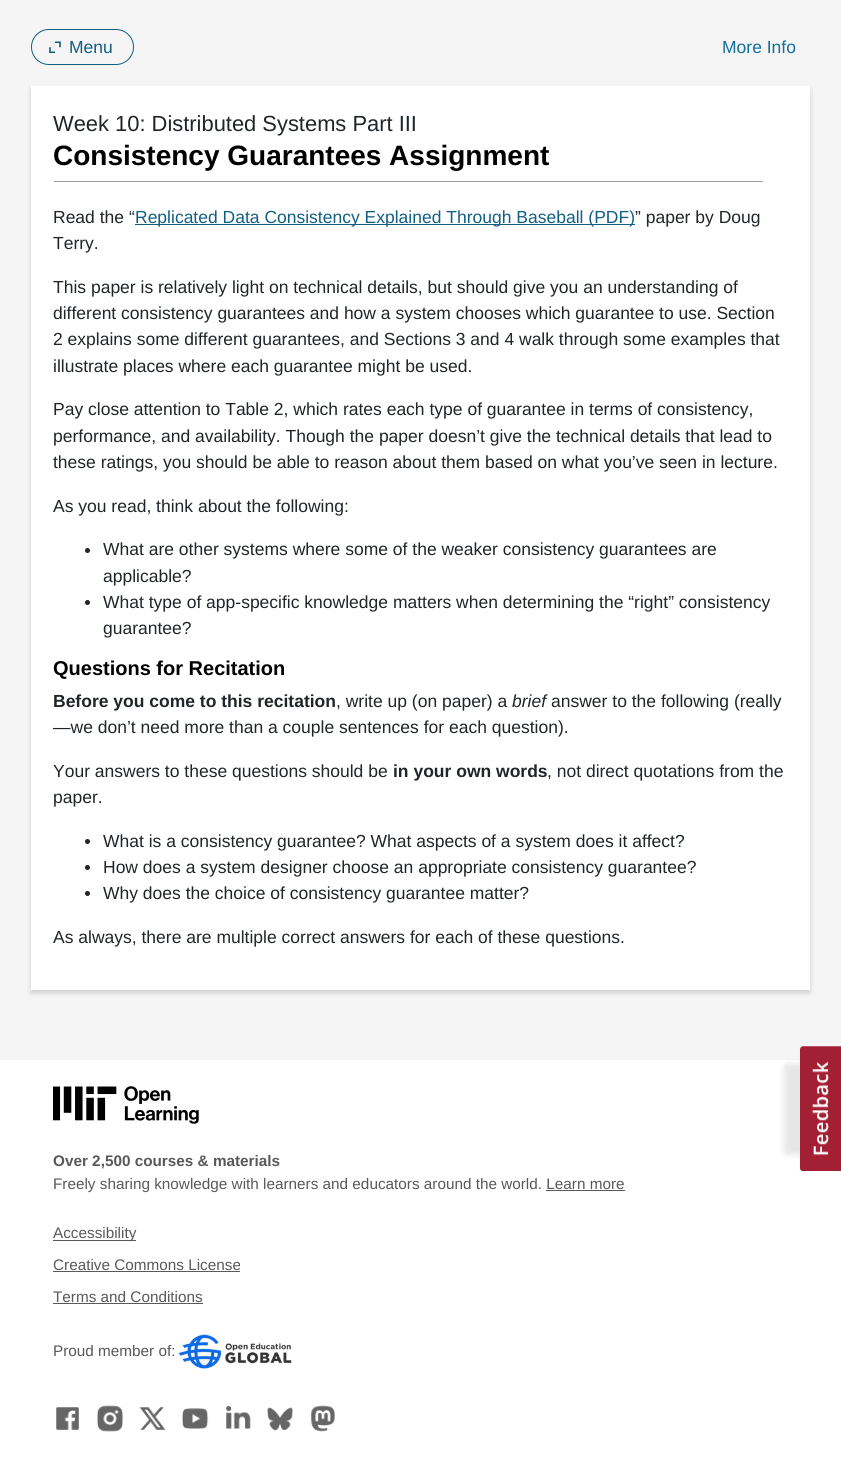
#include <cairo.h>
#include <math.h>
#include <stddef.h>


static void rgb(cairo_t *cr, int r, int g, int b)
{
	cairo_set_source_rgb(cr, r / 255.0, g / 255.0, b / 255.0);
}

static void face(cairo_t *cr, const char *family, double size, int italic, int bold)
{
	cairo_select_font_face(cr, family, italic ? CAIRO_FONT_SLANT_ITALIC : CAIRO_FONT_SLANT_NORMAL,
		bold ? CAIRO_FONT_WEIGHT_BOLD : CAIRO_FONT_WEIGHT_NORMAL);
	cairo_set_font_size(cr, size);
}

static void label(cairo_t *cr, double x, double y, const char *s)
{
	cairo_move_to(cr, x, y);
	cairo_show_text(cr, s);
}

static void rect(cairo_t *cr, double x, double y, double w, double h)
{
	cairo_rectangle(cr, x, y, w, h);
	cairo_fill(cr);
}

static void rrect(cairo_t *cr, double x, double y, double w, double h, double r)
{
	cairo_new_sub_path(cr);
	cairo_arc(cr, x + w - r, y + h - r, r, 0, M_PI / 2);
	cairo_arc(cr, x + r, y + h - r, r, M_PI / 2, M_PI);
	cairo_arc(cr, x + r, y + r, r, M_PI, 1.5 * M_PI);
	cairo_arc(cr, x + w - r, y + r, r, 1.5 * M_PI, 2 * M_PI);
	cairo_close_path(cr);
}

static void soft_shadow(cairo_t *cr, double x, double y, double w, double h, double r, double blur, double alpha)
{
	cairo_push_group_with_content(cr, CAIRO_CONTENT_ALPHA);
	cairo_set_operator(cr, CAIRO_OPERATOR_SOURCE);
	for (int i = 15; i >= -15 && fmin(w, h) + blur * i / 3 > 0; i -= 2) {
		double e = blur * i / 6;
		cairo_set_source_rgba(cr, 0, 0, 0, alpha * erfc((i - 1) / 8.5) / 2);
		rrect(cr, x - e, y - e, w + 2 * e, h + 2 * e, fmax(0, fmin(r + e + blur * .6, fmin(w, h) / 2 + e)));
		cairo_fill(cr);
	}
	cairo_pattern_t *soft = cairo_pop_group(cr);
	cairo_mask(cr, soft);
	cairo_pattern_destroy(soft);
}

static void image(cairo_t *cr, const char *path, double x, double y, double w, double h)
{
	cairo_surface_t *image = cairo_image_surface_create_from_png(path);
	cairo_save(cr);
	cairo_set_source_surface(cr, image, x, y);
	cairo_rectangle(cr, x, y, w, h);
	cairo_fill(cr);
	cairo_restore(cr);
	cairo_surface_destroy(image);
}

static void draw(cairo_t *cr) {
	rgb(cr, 245, 245, 245);
	cairo_paint(cr);
	rrect(cr, 31.5, 29.5, 102, 35, 17.5);
	rgb(cr, 17, 95, 131);
	cairo_set_line_width(cr, 1);
	cairo_stroke(cr);
	image(cr, "image0.png", 49, 41, 12, 12);
	face(cr, "Liberation Sans", 17.5, 0, 0);
	label(cr, 69, 53, "Menu");
	rgb(cr, 18, 111, 154);
	label(cr, 722, 53, "More Info");
	rgb(cr, 0, 0, 0);
	soft_shadow(cr, 31, 89, 779, 904, 0, 2.5, 0.16);
	rgb(cr, 255, 255, 255);
	rect(cr, 31, 86, 779, 904);
	rgb(cr, 156, 157, 158);
	rect(cr, 54, 181, 709, 1);
	face(cr, "Liberation Sans", 21.9, 0, 0);
	rgb(cr, 33, 37, 41);
	label(cr, 53, 131, "Week 10: Distributed Systems Part III");
	face(cr, "Liberation Sans", 28, 0, 1);
	rgb(cr, 0, 0, 0);
	label(cr, 53, 165, "Consistency Guarantees Assignment");
	face(cr, "Liberation Sans", 17.5, 0, 0);
	rgb(cr, 33, 37, 41);
	label(cr, 53, 223, "Read the “");
	rgb(cr, 17, 95, 131);
	rect(cr, 135, 224, 500, 1);
	label(cr, 135, 223, "Replicated Data Consistency Explained Through Baseball (PDF)");
	rgb(cr, 33, 37, 41);
	label(cr, 635, 223, "” paper by Doug");
	label(cr, 53, 249, "Terry.");
	label(cr, 53, 293, "This paper is relatively light on technical details, but should give you an understanding of");
	label(cr, 53, 319, "different consistency guarantees and how a system chooses which guarantee to use. Section");
	label(cr, 53, 345, "2 explains some different guarantees, and Sections 3 and 4 walk through some examples that");
	label(cr, 53, 372, "illustrate places where each guarantee might be used.");
	label(cr, 53, 415, "Pay close attention to Table 2, which rates each type of guarantee in terms of consistency,");
	label(cr, 53, 442, "performance, and availability. Though the paper doesn’t give the technical details that lead to");
	label(cr, 53, 468, "these ratings, you should be able to reason about them based on what you’ve seen in lecture.");
	label(cr, 53, 512, "As you read, think about the following:");
	cairo_new_path(cr);
	cairo_arc(cr, 87.5, 550.5, 2.5, 0, 2 * M_PI);
	cairo_fill(cr);
	label(cr, 103, 555, "What are other systems where some of the weaker consistency guarantees are");
	label(cr, 103, 582, "applicable?");
	cairo_new_path(cr);
	cairo_arc(cr, 87.5, 602.5, 2.5, 0, 2 * M_PI);
	cairo_fill(cr);
	label(cr, 103, 608, "What type of app-specific knowledge matters when determining the “right” consistency");
	label(cr, 103, 634, "guarantee?");
	face(cr, "Liberation Sans", 20, 0, 1);
	rgb(cr, 0, 0, 0);
	label(cr, 53, 675, "Questions for Recitation");
	face(cr, "Liberation Sans", 17.5, 0, 1);
	rgb(cr, 33, 37, 41);
	label(cr, 53, 707, "Before you come to this recitation");
	face(cr, "Liberation Sans", 17.5, 0, 0);
	label(cr, 336, 707, ", write up (on paper) a");
	face(cr, "Liberation Sans", 17.5, 1, 0);
	label(cr, 512, 707, "brief");
	face(cr, "Liberation Sans", 17.5, 0, 0);
	label(cr, 551, 707, "answer to the following (really");
	label(cr, 53, 733, "—we don’t need more than a couple sentences for each question).");
	label(cr, 53, 777, "Your answers to these questions should be");
	face(cr, "Liberation Sans", 17.5, 0, 1);
	label(cr, 393, 777, "in your own words");
	face(cr, "Liberation Sans", 17.5, 0, 0);
	label(cr, 547, 777, ", not direct quotations from the");
	label(cr, 53, 803, "paper.");
	cairo_new_path(cr);
	cairo_arc(cr, 87.5, 841.5, 2.5, 0, 2 * M_PI);
	cairo_fill(cr);
	label(cr, 103, 847, "What is a consistency guarantee? What aspects of a system does it affect?");
	cairo_new_path(cr);
	cairo_arc(cr, 87.5, 867.5, 2.5, 0, 2 * M_PI);
	cairo_fill(cr);
	label(cr, 103, 873, "How does a system designer choose an appropriate consistency guarantee?");
	cairo_new_path(cr);
	cairo_arc(cr, 87.5, 893.5, 2.5, 0, 2 * M_PI);
	cairo_fill(cr);
	label(cr, 103, 899, "Why does the choice of consistency guarantee matter?");
	label(cr, 53, 943, "As always, there are multiple correct answers for each of these questions.");
	rgb(cr, 255, 255, 255);
	rect(cr, 0, 1060, 841, 404);
	image(cr, "image1.png", 53, 1086, 146, 38);
	face(cr, "Liberation Sans", 15.3, 0, 1);
	rgb(cr, 89, 89, 89);
	label(cr, 53, 1166, "Over 2,500 courses & materials");
	face(cr, "Liberation Sans", 15.3, 0, 0);
	label(cr, 53, 1189, "Freely sharing knowledge with learners and educators around the world. Learn more");
	rect(cr, 546, 1190, 79, 1);
	rect(cr, 53, 1240, 83, 1);
	label(cr, 53, 1238, "Accessibility");
	label(cr, 53, 1270, "Creative Commons License");
	rect(cr, 53, 1271, 187, 1);
	label(cr, 53, 1302, "Terms and Conditions");
	rect(cr, 53, 1303, 150, 1);
	label(cr, 53, 1356, "Proud member of:");
	image(cr, "image2.png", 178, 1334, 114, 35);
	image(cr, "image3.png", 56, 1407, 23, 23);
	image(cr, "image4.png", 97, 1405, 27, 27);
	image(cr, "image5.png", 139, 1407, 27, 23);
	image(cr, "image6.png", 182, 1408, 27, 21);
	image(cr, "image7.png", 226, 1406, 25, 23);
	image(cr, "image8.png", 267, 1407, 26, 24);
	image(cr, "image9.png", 311, 1405, 24, 27);
	rgb(cr, 0, 0, 0);
	soft_shadow(cr, 784, 1064, 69, 91, 2.5, 3, 0.1);
	image(cr, "image10.png", 800, 1046, 41, 125);
}

int main(void) {
	cairo_surface_t *surface = cairo_image_surface_create(CAIRO_FORMAT_RGB24, 841, 1464);
	cairo_t *cr = cairo_create(surface);
	cairo_font_options_t *options = cairo_font_options_create();
	cairo_font_options_set_hint_metrics(options, CAIRO_HINT_METRICS_OFF);
	cairo_font_options_set_hint_style(options, CAIRO_HINT_STYLE_NONE);
	cairo_set_font_options(cr, options);
	cairo_set_miter_limit(cr, 4);
	draw(cr);
	cairo_surface_write_to_png(surface, "render.png");
	cairo_font_options_destroy(options);
	cairo_destroy(cr);
	cairo_surface_destroy(surface);
	return 0;
}
